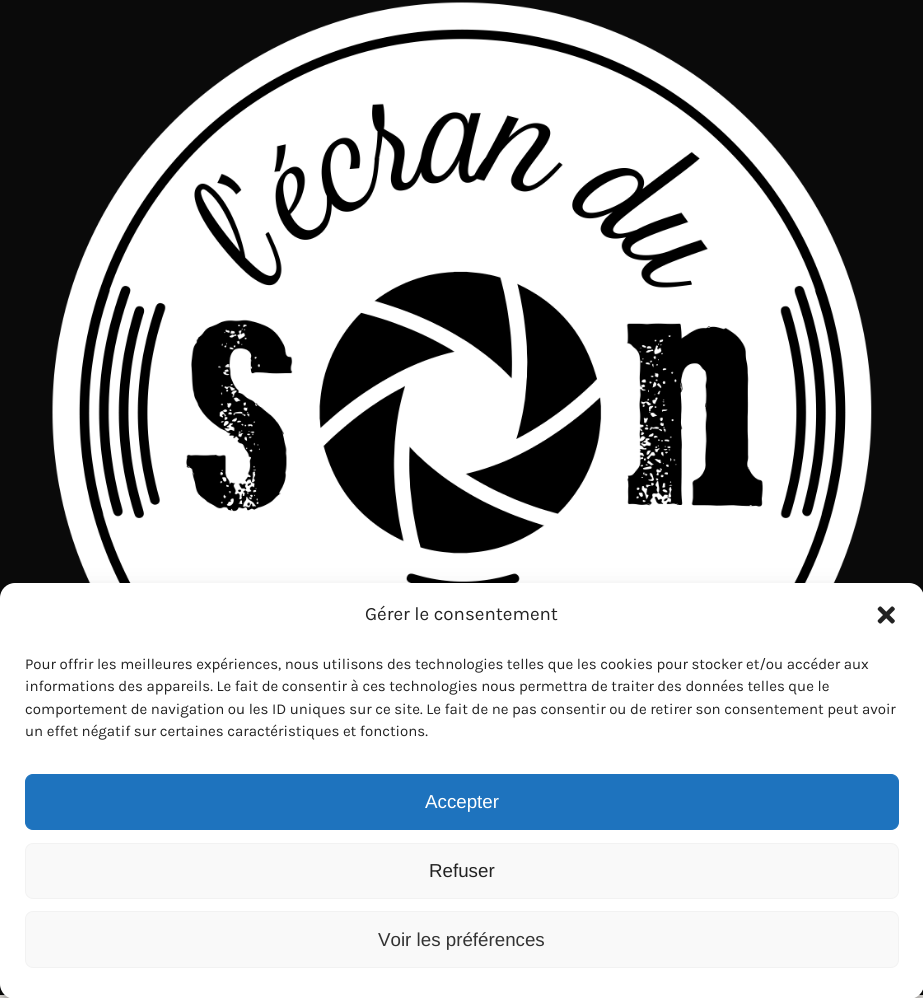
#include <cairo.h>
#include <math.h>
#include <stddef.h>


static void rgb(cairo_t *cr, int r, int g, int b)
{
	cairo_set_source_rgb(cr, r / 255.0, g / 255.0, b / 255.0);
}

static void face(cairo_t *cr, const char *family, double size, int italic, int bold)
{
	cairo_select_font_face(cr, family, italic ? CAIRO_FONT_SLANT_ITALIC : CAIRO_FONT_SLANT_NORMAL,
		bold ? CAIRO_FONT_WEIGHT_BOLD : CAIRO_FONT_WEIGHT_NORMAL);
	cairo_set_font_size(cr, size);
}

static void label(cairo_t *cr, double x, double y, const char *s)
{
	cairo_move_to(cr, x, y);
	cairo_show_text(cr, s);
}

static void rect(cairo_t *cr, double x, double y, double w, double h)
{
	cairo_rectangle(cr, x, y, w, h);
	cairo_fill(cr);
}

static void rrect(cairo_t *cr, double x, double y, double w, double h, double r)
{
	cairo_new_sub_path(cr);
	cairo_arc(cr, x + w - r, y + h - r, r, 0, M_PI / 2);
	cairo_arc(cr, x + r, y + h - r, r, M_PI / 2, M_PI);
	cairo_arc(cr, x + r, y + r, r, M_PI, 1.5 * M_PI);
	cairo_arc(cr, x + w - r, y + r, r, 1.5 * M_PI, 2 * M_PI);
	cairo_close_path(cr);
}

static void soft_shadow(cairo_t *cr, double x, double y, double w, double h, double r, double blur, double alpha)
{
	cairo_push_group_with_content(cr, CAIRO_CONTENT_ALPHA);
	cairo_set_operator(cr, CAIRO_OPERATOR_SOURCE);
	for (int i = 15; i >= -15 && fmin(w, h) + blur * i / 3 > 0; i -= 2) {
		double e = blur * i / 6;
		cairo_set_source_rgba(cr, 0, 0, 0, alpha * erfc((i - 1) / 8.5) / 2);
		rrect(cr, x - e, y - e, w + 2 * e, h + 2 * e, fmax(0, fmin(r + e + blur * .6, fmin(w, h) / 2 + e)));
		cairo_fill(cr);
	}
	cairo_pattern_t *soft = cairo_pop_group(cr);
	cairo_mask(cr, soft);
	cairo_pattern_destroy(soft);
}

static void image(cairo_t *cr, const char *path, double x, double y, double w, double h)
{
	cairo_surface_t *image = cairo_image_surface_create_from_png(path);
	cairo_save(cr);
	cairo_set_source_surface(cr, image, x, y);
	cairo_rectangle(cr, x, y, w, h);
	cairo_fill(cr);
	cairo_restore(cr);
	cairo_surface_destroy(image);
}

static void draw(cairo_t *cr) {
	rgb(cr, 10, 10, 10);
	cairo_paint(cr);
	image(cr, "image0.png", 52, 2, 820, 581);
	rgb(cr, 248, 244, 240);
	rect(cr, 0, 995, 923, 3);
	rgb(cr, 0, 0, 0);
	soft_shadow(cr, 0, 590, 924, 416, 15, 4, 0.23);
	soft_shadow(cr, 0, 595, 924, 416, 15, 12.5, 0.19);
	rgb(cr, 255, 255, 255);
	rrect(cr, 0, 583, 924, 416, 15);
	cairo_fill(cr);
	face(cr, "Karla", 18.75, 0, 0);
	rgb(cr, 34, 34, 34);
	label(cr, 365, 620, "Gérer le consentement");
	image(cr, "image1.png", 877, 606, 18, 18);
	face(cr, "Karla", 15, 0, 0);
	label(cr, 25, 669, "Pour offrir les meilleures expériences, nous utilisons des technologies telles que les cookies pour stocker et/ou accéder aux");
	label(cr, 25, 691, "informations des appareils. Le fait de consentir à ces technologies nous permettra de traiter des données telles que le");
	label(cr, 25, 714, "comportement de navigation ou les ID uniques sur ce site. Le fait de ne pas consentir ou de retirer son consentement peut avoir");
	label(cr, 25, 736, "un effet négatif sur certaines caractéristiques et fonctions.");
	rgb(cr, 30, 115, 190);
	rrect(cr, 25.5, 774.5, 873, 55, 7.5);
	cairo_fill_preserve(cr);
	cairo_set_line_width(cr, 1);
	cairo_stroke(cr);
	face(cr, "Liberation Sans", 18.75, 0, 0);
	rgb(cr, 255, 255, 255);
	label(cr, 425, 808, "Accepter");
	rgb(cr, 249, 249, 249);
	rrect(cr, 25.5, 843.5, 873, 55, 7.5);
	cairo_fill_preserve(cr);
	rgb(cr, 242, 242, 242);
	cairo_stroke(cr);
	rgb(cr, 34, 34, 34);
	label(cr, 429, 877, "Refuser");
	rgb(cr, 249, 249, 249);
	rrect(cr, 25.5, 911.5, 873, 56, 7.5);
	cairo_fill_preserve(cr);
	rgb(cr, 242, 242, 242);
	cairo_stroke(cr);
	rgb(cr, 51, 51, 51);
	label(cr, 378, 946, "Voir les préférences");
}

int main(void) {
	cairo_surface_t *surface = cairo_image_surface_create(CAIRO_FORMAT_RGB24, 923, 998);
	cairo_t *cr = cairo_create(surface);
	cairo_font_options_t *options = cairo_font_options_create();
	cairo_font_options_set_hint_metrics(options, CAIRO_HINT_METRICS_OFF);
	cairo_font_options_set_hint_style(options, CAIRO_HINT_STYLE_NONE);
	cairo_set_font_options(cr, options);
	cairo_set_miter_limit(cr, 4);
	draw(cr);
	cairo_surface_write_to_png(surface, "render.png");
	cairo_font_options_destroy(options);
	cairo_destroy(cr);
	cairo_surface_destroy(surface);
	return 0;
}
